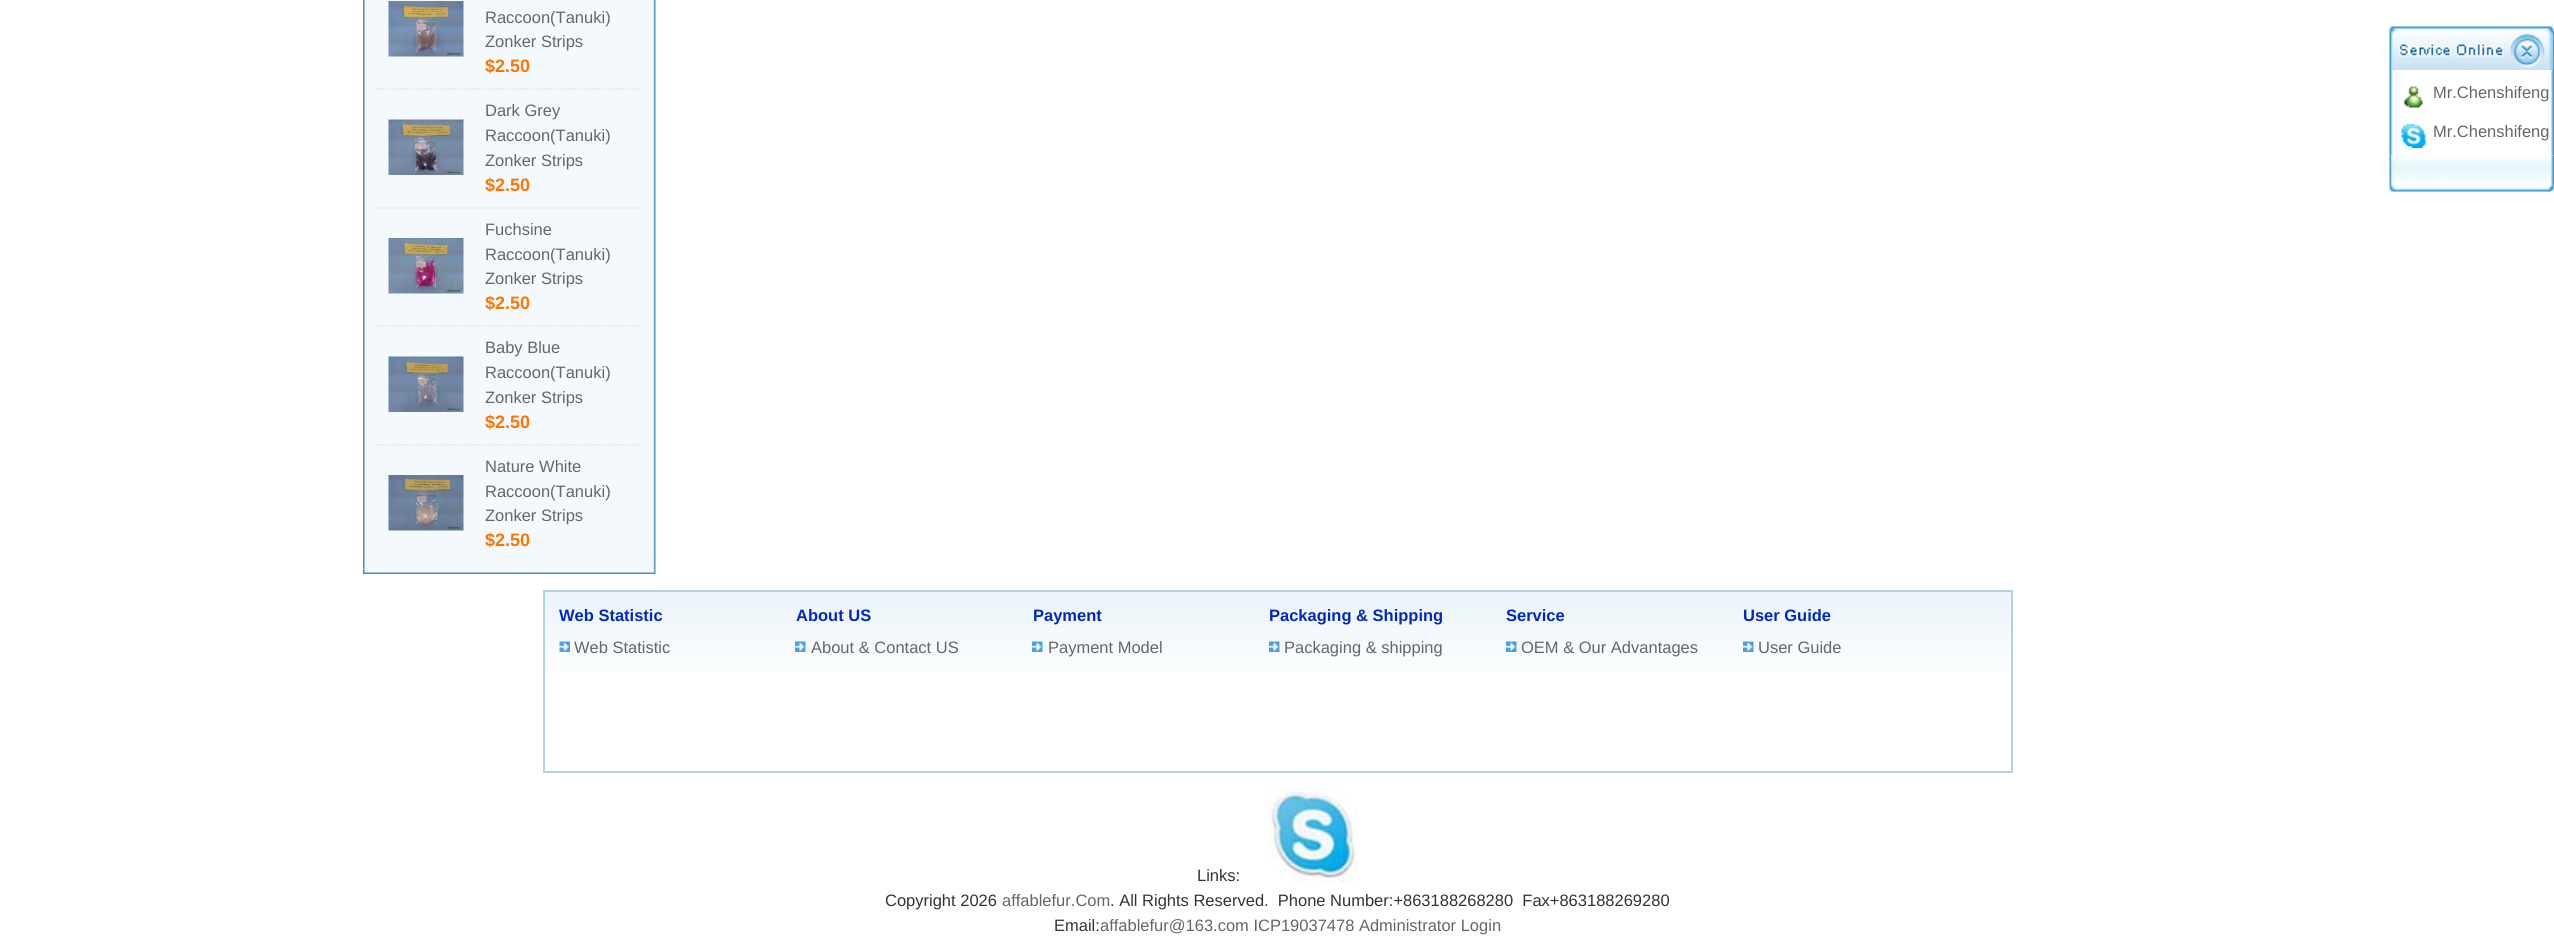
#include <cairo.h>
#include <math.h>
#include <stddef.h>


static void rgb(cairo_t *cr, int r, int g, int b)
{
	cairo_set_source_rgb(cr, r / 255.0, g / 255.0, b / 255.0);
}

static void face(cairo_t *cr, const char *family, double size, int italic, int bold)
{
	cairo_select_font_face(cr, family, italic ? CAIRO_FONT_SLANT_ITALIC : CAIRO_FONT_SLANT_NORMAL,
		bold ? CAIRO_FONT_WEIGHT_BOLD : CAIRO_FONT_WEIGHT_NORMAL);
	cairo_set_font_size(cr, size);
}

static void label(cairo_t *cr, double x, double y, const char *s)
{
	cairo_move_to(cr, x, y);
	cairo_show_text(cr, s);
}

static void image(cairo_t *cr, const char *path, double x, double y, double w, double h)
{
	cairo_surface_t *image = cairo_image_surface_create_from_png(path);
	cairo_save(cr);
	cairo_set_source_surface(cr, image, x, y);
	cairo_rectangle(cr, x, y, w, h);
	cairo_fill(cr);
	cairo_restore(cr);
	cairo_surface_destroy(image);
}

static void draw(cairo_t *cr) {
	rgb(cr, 255, 255, 255);
	cairo_paint(cr);
	image(cr, "image0.png", 363, 0, 293, 570);
	image(cr, "image1.png", 388, 1, 76, 56);
	face(cr, "Liberation Sans", 16.5, 0, 0);
	rgb(cr, 102, 102, 102);
	label(cr, 485, 23, "Raccoon(Tanuki)");
	label(cr, 485, 47, "Zonker Strips");
	face(cr, "Liberation Sans", 18, 0, 1);
	rgb(cr, 252, 118, 4);
	label(cr, 485, 72, "$2.50");
	cairo_new_path(cr);
	cairo_move_to(cr, 376.5, 89);
	cairo_line_to(cr, 475.5, 89);
	rgb(cr, 225, 225, 225);
	cairo_set_line_width(cr, 1.5);
	cairo_set_dash(cr, (double[]){1.5, 1.5}, 2, 0);
	cairo_stroke(cr);
	image(cr, "image2.png", 388, 119, 76, 56);
	cairo_new_path(cr);
	cairo_move_to(cr, 475.5, 89);
	cairo_line_to(cr, 640.5, 89);
	cairo_stroke(cr);
	face(cr, "Liberation Sans", 16.5, 0, 0);
	rgb(cr, 102, 102, 102);
	label(cr, 485, 116, "Dark Grey");
	label(cr, 485, 141, "Raccoon(Tanuki)");
	label(cr, 485, 166, "Zonker Strips");
	face(cr, "Liberation Sans", 18, 0, 1);
	rgb(cr, 252, 118, 4);
	label(cr, 485, 191, "$2.50");
	cairo_new_path(cr);
	cairo_move_to(cr, 376.5, 208);
	cairo_line_to(cr, 475.5, 208);
	rgb(cr, 225, 225, 225);
	cairo_stroke(cr);
	image(cr, "image3.png", 388, 238, 76, 56);
	cairo_new_path(cr);
	cairo_move_to(cr, 475.5, 208);
	cairo_line_to(cr, 640.5, 208);
	cairo_stroke(cr);
	face(cr, "Liberation Sans", 16.5, 0, 0);
	rgb(cr, 102, 102, 102);
	label(cr, 485, 235, "Fuchsine");
	label(cr, 485, 260, "Raccoon(Tanuki)");
	label(cr, 485, 284, "Zonker Strips");
	face(cr, "Liberation Sans", 18, 0, 1);
	rgb(cr, 252, 118, 4);
	label(cr, 485, 309, "$2.50");
	cairo_new_path(cr);
	cairo_move_to(cr, 376.5, 326);
	cairo_line_to(cr, 475.5, 326);
	rgb(cr, 225, 225, 225);
	cairo_stroke(cr);
	image(cr, "image4.png", 388, 356, 76, 56);
	cairo_new_path(cr);
	cairo_move_to(cr, 475.5, 326);
	cairo_line_to(cr, 640.5, 326);
	cairo_stroke(cr);
	face(cr, "Liberation Sans", 16.5, 0, 0);
	rgb(cr, 102, 102, 102);
	label(cr, 485, 353, "Baby Blue");
	label(cr, 485, 378, "Raccoon(Tanuki)");
	label(cr, 485, 403, "Zonker Strips");
	face(cr, "Liberation Sans", 18, 0, 1);
	rgb(cr, 252, 118, 4);
	label(cr, 485, 428, "$2.50");
	cairo_new_path(cr);
	cairo_move_to(cr, 376.5, 445);
	cairo_line_to(cr, 475.5, 445);
	rgb(cr, 225, 225, 225);
	cairo_stroke(cr);
	image(cr, "image5.png", 388, 475, 76, 56);
	cairo_new_path(cr);
	cairo_move_to(cr, 475.5, 445);
	cairo_line_to(cr, 640.5, 445);
	cairo_stroke(cr);
	face(cr, "Liberation Sans", 16.5, 0, 0);
	rgb(cr, 102, 102, 102);
	label(cr, 485, 472, "Nature White");
	label(cr, 485, 497, "Raccoon(Tanuki)");
	label(cr, 485, 521, "Zonker Strips");
	face(cr, "Liberation Sans", 18, 0, 1);
	rgb(cr, 252, 118, 4);
	label(cr, 485, 546, "$2.50");
	image(cr, "image6.png", 363, 569, 293, 5);
	image(cr, "image7.png", 2389, 26, 165, 44);
	image(cr, "image8.png", 2389, 70, 165, 86);
	image(cr, "image9.png", 2404, 86, 19, 22);
	face(cr, "Liberation Sans", 16.5, 0, 0);
	rgb(cr, 102, 102, 102);
	label(cr, 2433, 98, "Mr.Chenshifeng");
	image(cr, "image10.png", 2401, 124, 25, 24);
	label(cr, 2433, 137, "Mr.Chenshifeng");
	image(cr, "image11.png", 2389, 155, 165, 37);
	image(cr, "image12.png", 545, 592, 1466, 80);
	cairo_rectangle(cr, 544, 591, 1468, 181);
	rgb(cr, 178, 210, 221);
	cairo_set_line_width(cr, 2);
	cairo_set_dash(cr, NULL, 0, 0);
	cairo_stroke(cr);
	face(cr, "Liberation Sans", 16.5, 0, 1);
	rgb(cr, 3, 40, 193);
	label(cr, 559, 621, "Web Statistic");
	image(cr, "image13.png", 559, 641, 11, 11);
	face(cr, "Liberation Sans", 16.5, 0, 0);
	rgb(cr, 102, 102, 102);
	label(cr, 574, 653, "Web Statistic");
	face(cr, "Liberation Sans", 16.5, 0, 1);
	rgb(cr, 3, 40, 193);
	label(cr, 796, 621, "About US");
	image(cr, "image14.png", 795, 641, 11, 11);
	face(cr, "Liberation Sans", 16.5, 0, 0);
	rgb(cr, 102, 102, 102);
	label(cr, 811, 653, "About & Contact US");
	face(cr, "Liberation Sans", 16.5, 0, 1);
	rgb(cr, 3, 40, 193);
	label(cr, 1033, 621, "Payment");
	image(cr, "image15.png", 1032, 641, 11, 11);
	face(cr, "Liberation Sans", 16.5, 0, 0);
	rgb(cr, 102, 102, 102);
	label(cr, 1048, 653, "Payment Model");
	face(cr, "Liberation Sans", 16.5, 0, 1);
	rgb(cr, 3, 40, 193);
	label(cr, 1269, 621, "Packaging & Shipping");
	image(cr, "image16.png", 1269, 641, 11, 11);
	face(cr, "Liberation Sans", 16.5, 0, 0);
	rgb(cr, 102, 102, 102);
	label(cr, 1284, 653, "Packaging & shipping");
	face(cr, "Liberation Sans", 16.5, 0, 1);
	rgb(cr, 3, 40, 193);
	label(cr, 1506, 621, "Service");
	image(cr, "image15.png", 1506, 641, 11, 11);
	face(cr, "Liberation Sans", 16.5, 0, 0);
	rgb(cr, 102, 102, 102);
	label(cr, 1521, 653, "OEM & Our Advantages");
	face(cr, "Liberation Sans", 16.5, 0, 1);
	rgb(cr, 3, 40, 193);
	label(cr, 1743, 621, "User Guide");
	image(cr, "image14.png", 1743, 641, 11, 11);
	face(cr, "Liberation Sans", 16.5, 0, 0);
	rgb(cr, 102, 102, 102);
	label(cr, 1758, 653, "User Guide");
	rgb(cr, 51, 51, 51);
	label(cr, 1197, 881, "Links:");
	image(cr, "image17.png", 1267, 787, 91, 95);
	label(cr, 885, 906, "Copyright 2026");
	rgb(cr, 102, 102, 102);
	label(cr, 1002, 906, "affablefur.Com");
	rgb(cr, 51, 51, 51);
	label(cr, 1110, 906, ". All Rights Reserved.  Phone Number:+863188268280  Fax+863188269280");
	label(cr, 1054, 931, "Email:");
	rgb(cr, 102, 102, 102);
	label(cr, 1100, 931, "affablefur@163.com ICP19037478 Administrator Login");
}

int main(void) {
	cairo_surface_t *surface = cairo_image_surface_create(CAIRO_FORMAT_RGB24, 2554, 944);
	cairo_t *cr = cairo_create(surface);
	cairo_font_options_t *options = cairo_font_options_create();
	cairo_font_options_set_hint_metrics(options, CAIRO_HINT_METRICS_OFF);
	cairo_font_options_set_hint_style(options, CAIRO_HINT_STYLE_NONE);
	cairo_set_font_options(cr, options);
	cairo_set_miter_limit(cr, 4);
	draw(cr);
	cairo_surface_write_to_png(surface, "render.png");
	cairo_font_options_destroy(options);
	cairo_destroy(cr);
	cairo_surface_destroy(surface);
	return 0;
}
